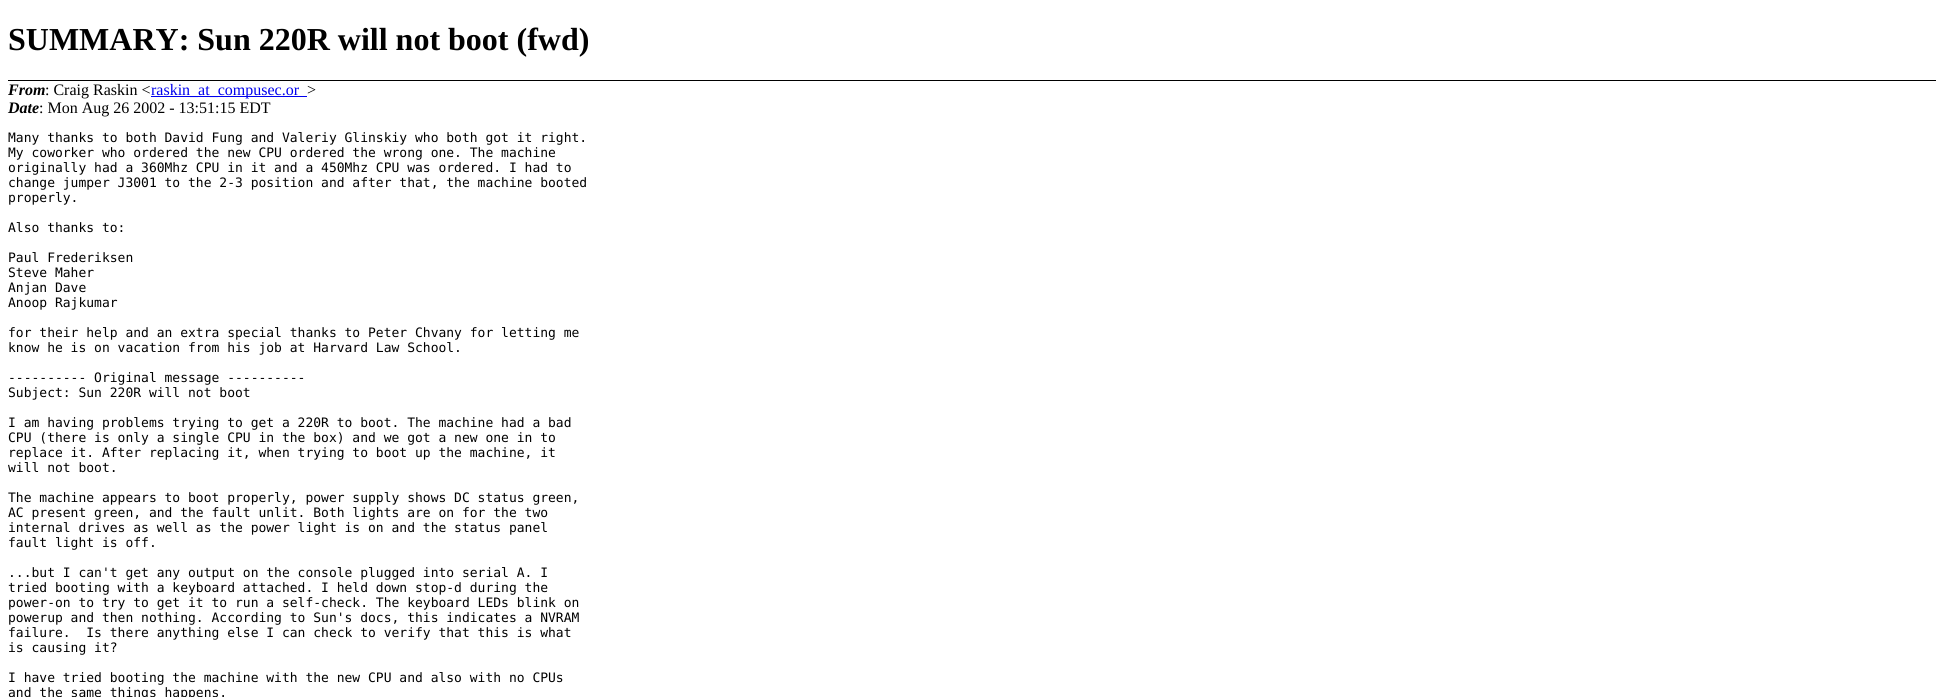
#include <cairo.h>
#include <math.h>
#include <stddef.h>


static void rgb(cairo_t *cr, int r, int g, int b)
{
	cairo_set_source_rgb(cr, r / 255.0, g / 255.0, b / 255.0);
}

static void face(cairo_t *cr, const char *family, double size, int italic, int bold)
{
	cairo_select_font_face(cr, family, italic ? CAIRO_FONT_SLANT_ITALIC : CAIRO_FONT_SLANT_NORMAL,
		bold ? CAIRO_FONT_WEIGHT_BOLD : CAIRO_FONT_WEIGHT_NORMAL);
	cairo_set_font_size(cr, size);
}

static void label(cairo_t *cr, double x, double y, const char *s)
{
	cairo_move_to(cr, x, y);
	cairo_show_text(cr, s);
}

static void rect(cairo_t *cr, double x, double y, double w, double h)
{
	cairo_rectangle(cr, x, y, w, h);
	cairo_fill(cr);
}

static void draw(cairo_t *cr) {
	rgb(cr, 255, 255, 255);
	cairo_paint(cr);
	rgb(cr, 0, 0, 0);
	rect(cr, 8, 80, 1928, 1);
	face(cr, "Liberation Serif", 32, 0, 1);
	label(cr, 8, 50, "SUMMARY: Sun 220R will not boot (fwd)");
	face(cr, "Liberation Serif", 16, 1, 1);
	label(cr, 8, 95, "From");
	face(cr, "Liberation Serif", 16, 0, 0);
	label(cr, 45, 95, ": Craig Raskin <");
	rgb(cr, 0, 0, 238);
	rect(cr, 151, 96, 156, 1);
	label(cr, 151, 95, "raskin_at_compusec.or");
	rgb(cr, 0, 0, 0);
	label(cr, 307, 95, ">");
	face(cr, "Liberation Serif", 16, 1, 1);
	label(cr, 8, 113, "Date");
	face(cr, "Liberation Serif", 16, 0, 0);
	label(cr, 39, 113, ": Mon Aug 26 2002 - 13:51:15 EDT");
	face(cr, "DejaVu Sans Mono", 13, 0, 0);
	label(cr, 8, 142, "Many thanks to both David Fung and Valeriy Glinskiy who both got it right.");
	label(cr, 8, 157, "My coworker who ordered the new CPU ordered the wrong one. The machine");
	label(cr, 8, 172, "originally had a 360Mhz CPU in it and a 450Mhz CPU was ordered. I had to");
	label(cr, 8, 187, "change jumper J3001 to the 2-3 position and after that, the machine booted");
	label(cr, 8, 202, "properly.");
	label(cr, 8, 232, "Also thanks to:");
	label(cr, 8, 262, "Paul Frederiksen");
	label(cr, 8, 277, "Steve Maher");
	label(cr, 8, 292, "Anjan Dave");
	label(cr, 8, 307, "Anoop Rajkumar");
	label(cr, 8, 337, "for their help and an extra special thanks to Peter Chvany for letting me");
	label(cr, 8, 352, "know he is on vacation from his job at Harvard Law School.");
	label(cr, 8, 382, "---------- Original message ----------");
	label(cr, 8, 397, "Subject: Sun 220R will not boot");
	label(cr, 8, 427, "I am having problems trying to get a 220R to boot. The machine had a bad");
	label(cr, 8, 442, "CPU (there is only a single CPU in the box) and we got a new one in to");
	label(cr, 8, 457, "replace it. After replacing it, when trying to boot up the machine, it");
	label(cr, 8, 472, "will not boot.");
	label(cr, 8, 502, "The machine appears to boot properly, power supply shows DC status green,");
	label(cr, 8, 517, "AC present green, and the fault unlit. Both lights are on for the two");
	label(cr, 8, 532, "internal drives as well as the power light is on and the status panel");
	label(cr, 8, 547, "fault light is off.");
	label(cr, 8, 577, "...but I can't get any output on the console plugged into serial A. I");
	label(cr, 8, 592, "tried booting with a keyboard attached. I held down stop-d during the");
	label(cr, 8, 607, "power-on to try to get it to run a self-check. The keyboard LEDs blink on");
	label(cr, 8, 622, "powerup and then nothing. According to Sun's docs, this indicates a NVRAM");
	label(cr, 8, 637, "failure.  Is there anything else I can check to verify that this is what");
	label(cr, 8, 652, "is causing it?");
	label(cr, 8, 682, "I have tried booting the machine with the new CPU and also with no CPUs");
	label(cr, 8, 697, "and the same things happens.");
}

int main(void) {
	cairo_surface_t *surface = cairo_image_surface_create(CAIRO_FORMAT_RGB24, 1944, 697);
	cairo_t *cr = cairo_create(surface);
	cairo_font_options_t *options = cairo_font_options_create();
	cairo_font_options_set_hint_metrics(options, CAIRO_HINT_METRICS_OFF);
	cairo_font_options_set_hint_style(options, CAIRO_HINT_STYLE_NONE);
	cairo_set_font_options(cr, options);
	cairo_set_miter_limit(cr, 4);
	draw(cr);
	cairo_surface_write_to_png(surface, "render.png");
	cairo_font_options_destroy(options);
	cairo_destroy(cr);
	cairo_surface_destroy(surface);
	return 0;
}
